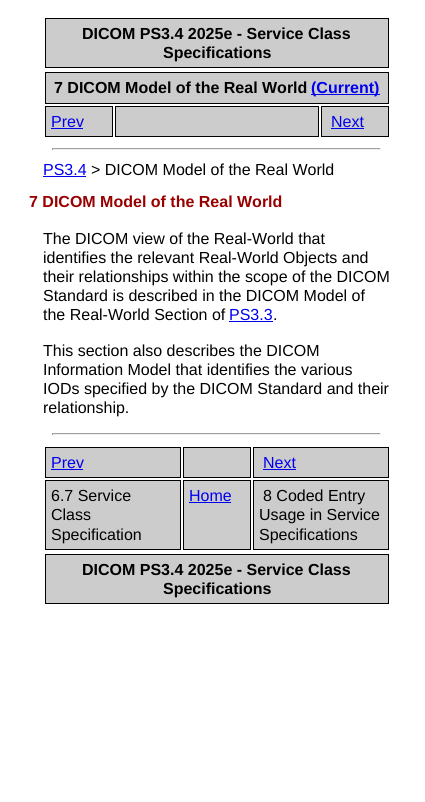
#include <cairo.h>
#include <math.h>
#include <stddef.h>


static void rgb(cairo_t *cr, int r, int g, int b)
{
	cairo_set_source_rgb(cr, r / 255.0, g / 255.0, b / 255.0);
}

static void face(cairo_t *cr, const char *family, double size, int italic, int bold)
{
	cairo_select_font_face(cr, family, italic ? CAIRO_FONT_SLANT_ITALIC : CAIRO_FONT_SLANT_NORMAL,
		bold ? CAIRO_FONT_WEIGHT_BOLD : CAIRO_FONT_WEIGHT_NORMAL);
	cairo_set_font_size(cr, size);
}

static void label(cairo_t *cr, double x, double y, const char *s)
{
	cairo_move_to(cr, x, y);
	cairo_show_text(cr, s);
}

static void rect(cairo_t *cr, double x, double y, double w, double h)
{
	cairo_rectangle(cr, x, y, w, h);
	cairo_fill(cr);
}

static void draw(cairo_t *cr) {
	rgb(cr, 255, 255, 255);
	cairo_paint(cr);
	rgb(cr, 204, 204, 204);
	cairo_rectangle(cr, 45.5, 18.5, 343, 49);
	cairo_fill_preserve(cr);
	rgb(cr, 0, 0, 0);
	cairo_set_line_width(cr, 1);
	cairo_stroke(cr);
	face(cr, "Liberation Sans", 16, 0, 1);
	label(cr, 82, 39, "DICOM PS3.4 2025e - Service Class");
	label(cr, 163, 58, "Specifications");
	rgb(cr, 204, 204, 204);
	cairo_rectangle(cr, 45.5, 72.5, 343, 31);
	cairo_fill_preserve(cr);
	rgb(cr, 0, 0, 0);
	cairo_stroke(cr);
	label(cr, 54, 93, "7 DICOM Model of the Real World");
	rgb(cr, 0, 0, 238);
	rect(cr, 311, 94, 69, 1);
	label(cr, 311, 93, "(Current)");
	rgb(cr, 204, 204, 204);
	cairo_rectangle(cr, 45.5, 106.5, 67, 30);
	cairo_fill_preserve(cr);
	rgb(cr, 0, 0, 0);
	cairo_stroke(cr);
	face(cr, "Liberation Sans", 16, 0, 0);
	rgb(cr, 0, 0, 238);
	label(cr, 51, 127, "Prev");
	rect(cr, 51, 128, 32, 1);
	rgb(cr, 204, 204, 204);
	cairo_rectangle(cr, 115.5, 106.5, 203, 30);
	cairo_fill_preserve(cr);
	rgb(cr, 0, 0, 0);
	cairo_stroke(cr);
	rgb(cr, 204, 204, 204);
	cairo_rectangle(cr, 321.5, 106.5, 67, 30);
	cairo_fill_preserve(cr);
	rgb(cr, 0, 0, 0);
	cairo_stroke(cr);
	rgb(cr, 0, 0, 238);
	label(cr, 331, 127, "Next");
	rect(cr, 331, 128, 33, 1);
	rgb(cr, 159, 159, 159);
	rect(cr, 52, 148, 329, 1);
	rgb(cr, 238, 238, 238);
	rect(cr, 380, 148, 1, 2);
	rect(cr, 52, 149, 329, 1);
	rgb(cr, 159, 159, 159);
	rect(cr, 52, 148, 1, 2);
	rgb(cr, 0, 0, 238);
	label(cr, 43, 175, "PS3.4");
	rect(cr, 43, 176, 43, 1);
	rgb(cr, 0, 0, 0);
	label(cr, 91, 175, "> DICOM Model of the Real World");
	face(cr, "Liberation Sans", 16, 0, 1);
	rgb(cr, 153, 0, 0);
	label(cr, 29, 207, "7 DICOM Model of the Real World");
	face(cr, "Liberation Sans", 16, 0, 0);
	rgb(cr, 0, 0, 0);
	label(cr, 43, 244, "The DICOM view of the Real-World that");
	label(cr, 43, 263, "identifies the relevant Real-World Objects and");
	label(cr, 43, 282, "their relationships within the scope of the DICOM");
	label(cr, 43, 301, "Standard is described in the DICOM Model of");
	label(cr, 43, 320, "the Real-World Section of");
	rgb(cr, 0, 0, 238);
	label(cr, 229, 320, "PS3.3");
	rect(cr, 229, 321, 44, 1);
	rgb(cr, 0, 0, 0);
	label(cr, 273, 320, ".");
	label(cr, 43, 356, "This section also describes the DICOM");
	label(cr, 43, 375, "Information Model that identifies the various");
	label(cr, 43, 394, "IODs specified by the DICOM Standard and their");
	label(cr, 43, 413, "relationship.");
	rgb(cr, 159, 159, 159);
	rect(cr, 52, 433, 329, 1);
	rgb(cr, 238, 238, 238);
	rect(cr, 380, 433, 1, 2);
	rect(cr, 52, 434, 329, 1);
	rgb(cr, 159, 159, 159);
	rect(cr, 52, 433, 1, 2);
	rgb(cr, 204, 204, 204);
	cairo_rectangle(cr, 45.5, 447.5, 135, 30);
	cairo_fill_preserve(cr);
	rgb(cr, 0, 0, 0);
	cairo_stroke(cr);
	rgb(cr, 0, 0, 238);
	label(cr, 51, 468, "Prev");
	rect(cr, 51, 469, 32, 1);
	rgb(cr, 204, 204, 204);
	cairo_rectangle(cr, 183.5, 447.5, 67, 30);
	cairo_fill_preserve(cr);
	rgb(cr, 0, 0, 0);
	cairo_stroke(cr);
	rgb(cr, 204, 204, 204);
	cairo_rectangle(cr, 253.5, 447.5, 135, 30);
	cairo_fill_preserve(cr);
	rgb(cr, 0, 0, 0);
	cairo_stroke(cr);
	rgb(cr, 0, 0, 238);
	label(cr, 263, 468, "Next");
	rect(cr, 263, 469, 33, 1);
	rgb(cr, 204, 204, 204);
	cairo_rectangle(cr, 45.5, 480.5, 135, 69);
	cairo_fill_preserve(cr);
	rgb(cr, 0, 0, 0);
	cairo_stroke(cr);
	label(cr, 51, 501, "6.7 Service");
	label(cr, 51, 520, "Class");
	label(cr, 51, 540, "Specification");
	rgb(cr, 204, 204, 204);
	cairo_rectangle(cr, 183.5, 480.5, 67, 69);
	cairo_fill_preserve(cr);
	rgb(cr, 0, 0, 0);
	cairo_stroke(cr);
	rgb(cr, 0, 0, 238);
	label(cr, 189, 501, "Home");
	rect(cr, 189, 502, 42, 1);
	rgb(cr, 204, 204, 204);
	cairo_rectangle(cr, 253.5, 480.5, 135, 69);
	cairo_fill_preserve(cr);
	rgb(cr, 0, 0, 0);
	cairo_stroke(cr);
	label(cr, 263, 501, "8 Coded Entry");
	label(cr, 259, 520, "Usage in Service");
	label(cr, 259, 540, "Specifications");
	rgb(cr, 204, 204, 204);
	cairo_rectangle(cr, 45.5, 554.5, 343, 49);
	cairo_fill_preserve(cr);
	rgb(cr, 0, 0, 0);
	cairo_stroke(cr);
	face(cr, "Liberation Sans", 16, 0, 1);
	label(cr, 82, 575, "DICOM PS3.4 2025e - Service Class");
	label(cr, 163, 594, "Specifications");
}

int main(void) {
	cairo_surface_t *surface = cairo_image_surface_create(CAIRO_FORMAT_RGB24, 425, 802);
	cairo_t *cr = cairo_create(surface);
	cairo_font_options_t *options = cairo_font_options_create();
	cairo_font_options_set_hint_metrics(options, CAIRO_HINT_METRICS_OFF);
	cairo_font_options_set_hint_style(options, CAIRO_HINT_STYLE_NONE);
	cairo_set_font_options(cr, options);
	cairo_set_miter_limit(cr, 4);
	draw(cr);
	cairo_surface_write_to_png(surface, "render.png");
	cairo_font_options_destroy(options);
	cairo_destroy(cr);
	cairo_surface_destroy(surface);
	return 0;
}
